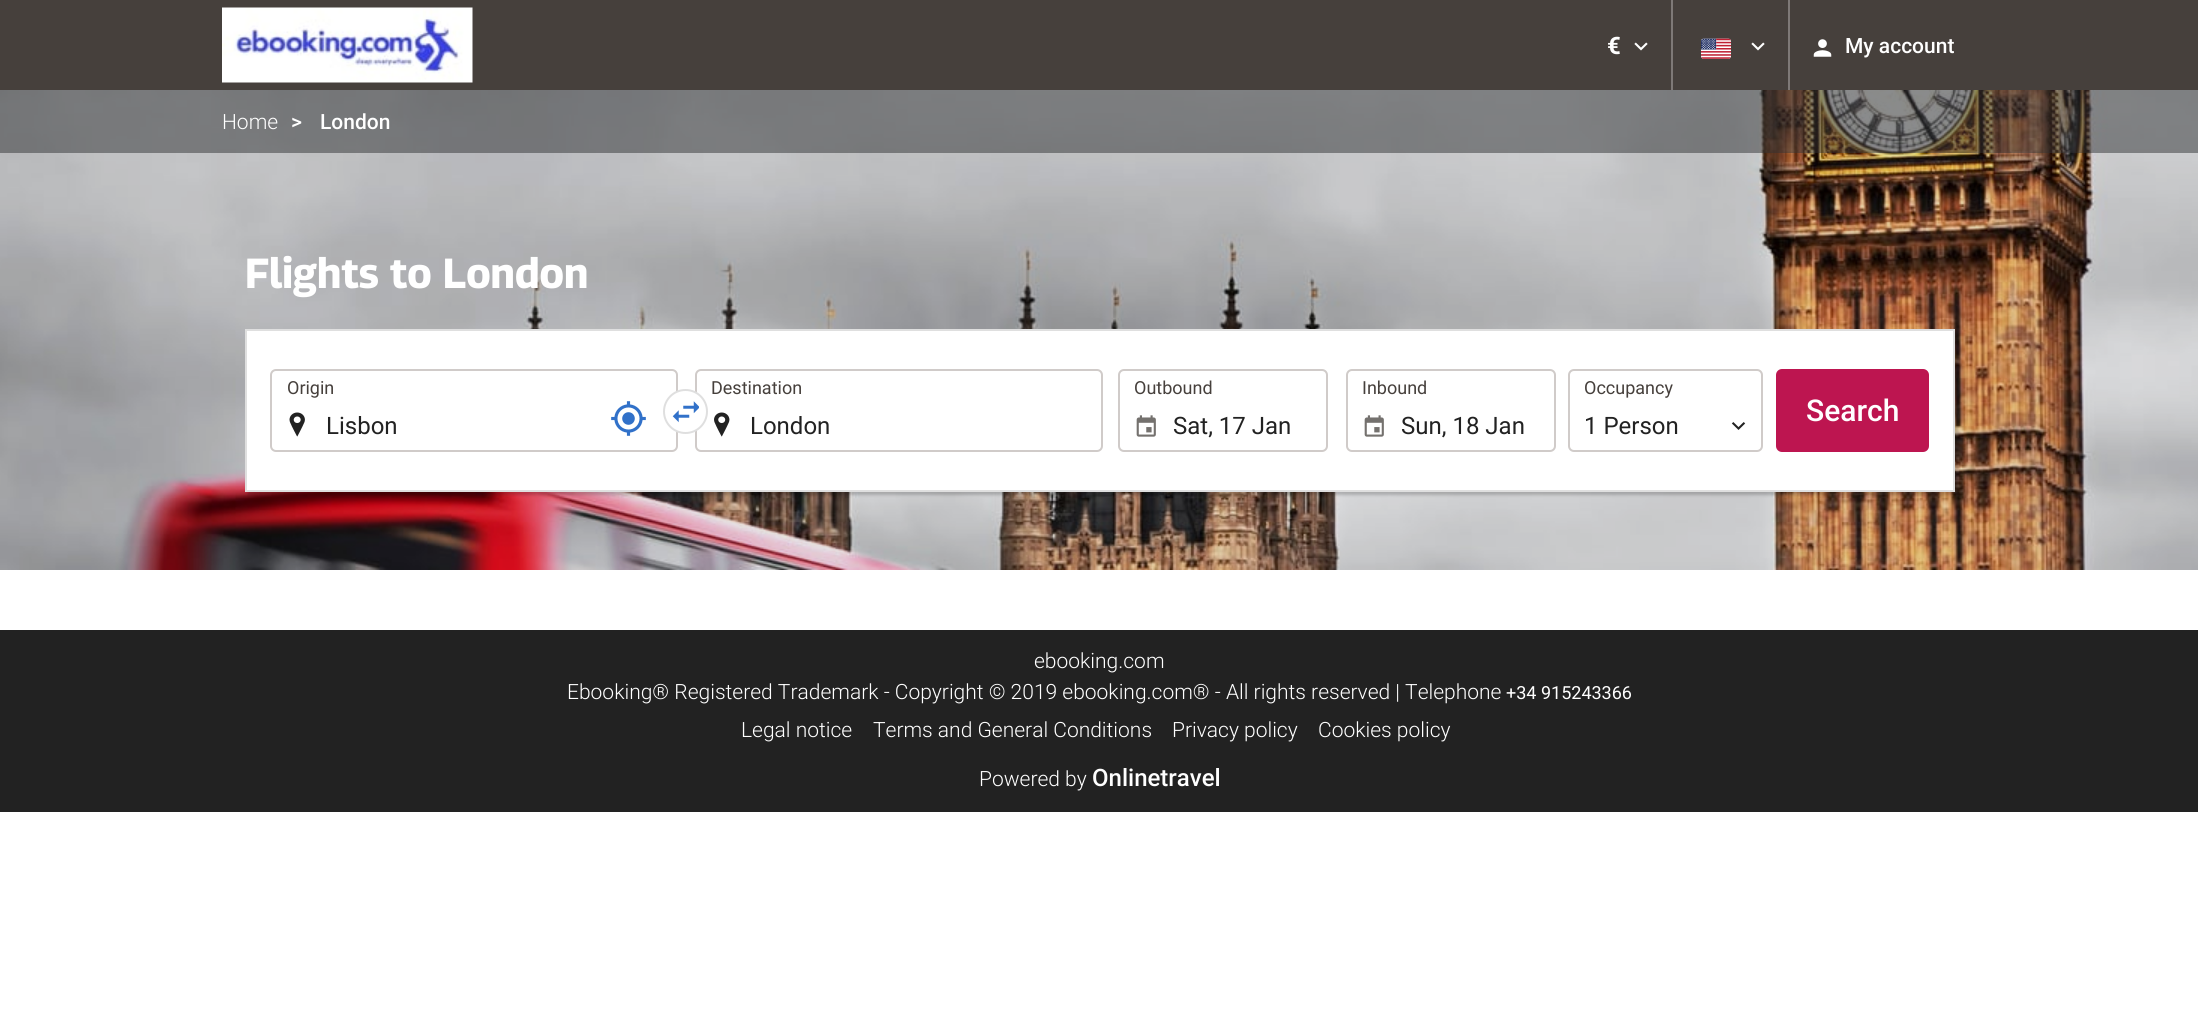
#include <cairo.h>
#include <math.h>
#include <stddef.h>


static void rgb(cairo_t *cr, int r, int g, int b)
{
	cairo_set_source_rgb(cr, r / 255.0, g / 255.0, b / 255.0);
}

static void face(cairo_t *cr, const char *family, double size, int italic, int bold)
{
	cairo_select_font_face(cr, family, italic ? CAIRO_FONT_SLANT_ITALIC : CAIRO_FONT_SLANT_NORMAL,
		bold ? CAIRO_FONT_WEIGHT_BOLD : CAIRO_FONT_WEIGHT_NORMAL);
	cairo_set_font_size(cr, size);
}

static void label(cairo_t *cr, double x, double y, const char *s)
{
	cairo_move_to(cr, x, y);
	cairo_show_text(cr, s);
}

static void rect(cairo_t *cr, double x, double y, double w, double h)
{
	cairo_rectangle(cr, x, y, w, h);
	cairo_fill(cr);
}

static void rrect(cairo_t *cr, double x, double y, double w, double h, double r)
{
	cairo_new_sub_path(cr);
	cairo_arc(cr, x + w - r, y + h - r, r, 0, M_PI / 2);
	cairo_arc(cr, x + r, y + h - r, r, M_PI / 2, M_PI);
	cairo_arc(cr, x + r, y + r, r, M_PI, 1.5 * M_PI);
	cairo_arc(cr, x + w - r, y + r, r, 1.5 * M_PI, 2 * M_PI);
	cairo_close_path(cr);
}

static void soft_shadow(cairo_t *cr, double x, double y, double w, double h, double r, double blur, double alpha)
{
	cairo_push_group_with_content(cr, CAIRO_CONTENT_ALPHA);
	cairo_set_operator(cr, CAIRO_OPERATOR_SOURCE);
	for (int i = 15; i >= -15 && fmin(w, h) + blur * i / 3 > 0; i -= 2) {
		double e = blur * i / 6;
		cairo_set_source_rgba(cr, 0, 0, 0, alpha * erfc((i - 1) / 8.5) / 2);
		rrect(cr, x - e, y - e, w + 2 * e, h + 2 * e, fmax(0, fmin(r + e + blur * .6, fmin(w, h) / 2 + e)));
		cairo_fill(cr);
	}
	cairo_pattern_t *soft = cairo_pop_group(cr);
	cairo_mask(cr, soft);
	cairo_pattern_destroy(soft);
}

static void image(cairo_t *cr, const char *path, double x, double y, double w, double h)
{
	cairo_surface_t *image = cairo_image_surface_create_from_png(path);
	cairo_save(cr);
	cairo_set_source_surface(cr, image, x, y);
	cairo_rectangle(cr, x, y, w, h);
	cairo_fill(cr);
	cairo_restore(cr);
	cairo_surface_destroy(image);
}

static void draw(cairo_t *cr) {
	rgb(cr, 255, 255, 255);
	cairo_paint(cr);
	rgb(cr, 70, 64, 60);
	rect(cr, 0, 0, 2198, 90);
	image(cr, "image0.png", 222, 7, 251, 76);
	rgb(cr, 126, 121, 119);
	rect(cr, 1671, 0, 2, 90);
	face(cr, "Roboto", 24, 0, 1);
	rgb(cr, 255, 255, 255);
	label(cr, 1607, 54, "€");
	image(cr, "image1.png", 1634, 42, 14, 9);
	rgb(cr, 126, 121, 119);
	rect(cr, 1788, 0, 2, 90);
	image(cr, "image2.png", 1701, 38, 30, 21);
	image(cr, "image1.png", 1751, 42, 14, 9);
	image(cr, "image3.png", 1813, 39, 19, 18);
	face(cr, "Roboto Medium", 21, 0, 0);
	rgb(cr, 255, 255, 255);
	label(cr, 1845, 53, "My account");
	image(cr, "image4.png", 0, 90, 2198, 480);
	cairo_set_source_rgba(cr, 0.188, 0.196, 0.208, 0.5);
	rect(cr, 0, 90, 2198, 63);
	face(cr, "Roboto Light", 21, 0, 0);
	rgb(cr, 255, 255, 255);
	label(cr, 222, 129, "Home");
	face(cr, "Roboto Medium", 21, 0, 0);
	label(cr, 291, 129, ">");
	label(cr, 320, 129, "London");
	face(cr, "Georama", 42, 0, 1);
	label(cr, 245, 288, "Flights to London");
	rgb(cr, 0, 0, 0);
	soft_shadow(cr, 248, 332, 1710, 163, 0, 1.5, 0.2);
	rgb(cr, 255, 255, 255);
	cairo_rectangle(cr, 246, 330, 1708, 161);
	cairo_fill_preserve(cr);
	rgb(cr, 223, 223, 223);
	cairo_stroke(cr);
	image(cr, "image5.png", 289, 412, 16, 25);
	rrect(cr, 271, 370, 406, 81, 5);
	rgb(cr, 208, 203, 201);
	cairo_stroke(cr);
	face(cr, "Roboto", 18, 0, 0);
	rgb(cr, 70, 64, 60);
	label(cr, 287, 394, "Origin");
	face(cr, "Roboto", 24, 0, 0);
	rgb(cr, 34, 34, 34);
	label(cr, 326, 434, "Lisbon");
	image(cr, "image6.png", 611, 401, 35, 35);
	image(cr, "image8.png", 714, 412, 16, 25);
	rrect(cr, 696, 370, 406, 81, 5);
	rgb(cr, 208, 203, 201);
	cairo_stroke(cr);
	rgb(cr, 255, 255, 255);
	cairo_arc(cr, 685.5, 411.5, 21.5, 0, 2 * M_PI);
	cairo_fill_preserve(cr);
	rgb(cr, 223, 223, 223);
	cairo_stroke(cr);
	image(cr, "image7.png", 672, 401, 27, 22);
	face(cr, "Roboto", 18, 0, 0);
	rgb(cr, 70, 64, 60);
	label(cr, 711, 394, "Destination");
	face(cr, "Roboto", 24, 0, 0);
	rgb(cr, 34, 34, 34);
	label(cr, 750, 434, "London");
	image(cr, "image9.png", 1136, 415, 20, 22);
	rrect(cr, 1119, 370, 208, 81, 5);
	rgb(cr, 208, 203, 201);
	cairo_stroke(cr);
	face(cr, "Roboto", 18, 0, 0);
	rgb(cr, 70, 64, 60);
	label(cr, 1134, 394, "Outbound");
	face(cr, "Roboto", 24, 0, 0);
	rgb(cr, 34, 34, 34);
	label(cr, 1173, 434, "Sat, 17 Jan");
	image(cr, "image9.png", 1364, 415, 20, 22);
	rrect(cr, 1347, 370, 208, 81, 5);
	rgb(cr, 208, 203, 201);
	cairo_stroke(cr);
	face(cr, "Roboto", 18, 0, 0);
	rgb(cr, 70, 64, 60);
	label(cr, 1362, 394, "Inbound");
	face(cr, "Roboto", 24, 0, 0);
	rgb(cr, 34, 34, 34);
	label(cr, 1401, 434, "Sun, 18 Jan");
	rrect(cr, 1569, 370, 193, 81, 5);
	rgb(cr, 208, 203, 201);
	cairo_stroke(cr);
	face(cr, "Roboto", 18, 0, 0);
	rgb(cr, 70, 64, 60);
	label(cr, 1584, 394, "Occupancy");
	face(cr, "Roboto", 24, 0, 0);
	rgb(cr, 34, 34, 34);
	label(cr, 1584, 434, "1 Person");
	image(cr, "image10.png", 1731, 422, 15, 8);
	rgb(cr, 189, 21, 80);
	rrect(cr, 1776, 369, 153, 83, 6);
	cairo_fill(cr);
	face(cr, "Roboto Medium", 30, 0, 0);
	rgb(cr, 255, 255, 255);
	label(cr, 1806, 421, "Search");
	rgb(cr, 34, 34, 34);
	rect(cr, 0, 630, 2198, 182);
	face(cr, "Roboto Light", 21, 0, 0);
	rgb(cr, 255, 255, 255);
	label(cr, 1034, 668, "ebooking.com");
	label(cr, 567, 699, "Ebooking® Registered Trademark - Copyright © 2019 ebooking.com® - All rights reserved | Telephone");
	face(cr, "Roboto", 18, 0, 0);
	label(cr, 1506, 699, "+34 915243366");
	face(cr, "Roboto Light", 21, 0, 0);
	label(cr, 741, 737, "Legal notice");
	label(cr, 873, 737, "Terms and General Conditions");
	label(cr, 1172, 737, "Privacy policy");
	label(cr, 1318, 737, "Cookies policy");
	label(cr, 979, 786, "Powered by");
	face(cr, "Roboto Medium", 24, 0, 0);
	label(cr, 1092, 786, "Onlinetravel");
}

int main(void) {
	cairo_surface_t *surface = cairo_image_surface_create(CAIRO_FORMAT_RGB24, 2198, 1030);
	cairo_t *cr = cairo_create(surface);
	cairo_font_options_t *options = cairo_font_options_create();
	cairo_font_options_set_hint_metrics(options, CAIRO_HINT_METRICS_OFF);
	cairo_font_options_set_hint_style(options, CAIRO_HINT_STYLE_NONE);
	cairo_set_font_options(cr, options);
	cairo_set_miter_limit(cr, 4);
	draw(cr);
	cairo_surface_write_to_png(surface, "render.png");
	cairo_font_options_destroy(options);
	cairo_destroy(cr);
	cairo_surface_destroy(surface);
	return 0;
}
